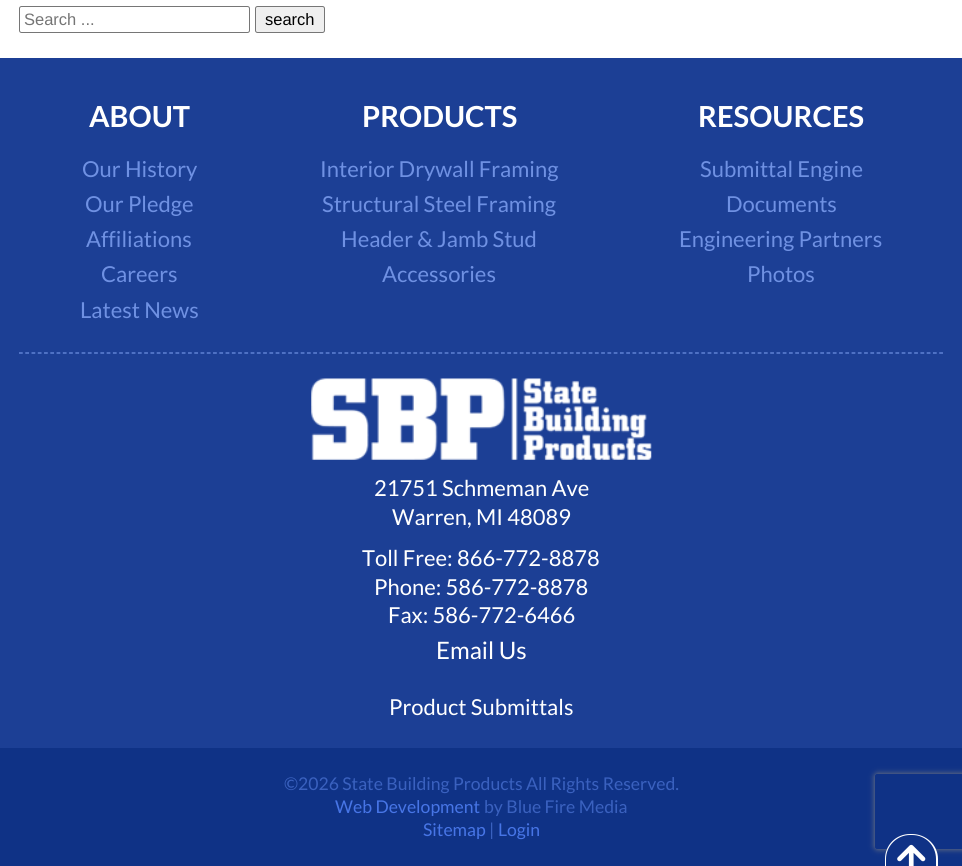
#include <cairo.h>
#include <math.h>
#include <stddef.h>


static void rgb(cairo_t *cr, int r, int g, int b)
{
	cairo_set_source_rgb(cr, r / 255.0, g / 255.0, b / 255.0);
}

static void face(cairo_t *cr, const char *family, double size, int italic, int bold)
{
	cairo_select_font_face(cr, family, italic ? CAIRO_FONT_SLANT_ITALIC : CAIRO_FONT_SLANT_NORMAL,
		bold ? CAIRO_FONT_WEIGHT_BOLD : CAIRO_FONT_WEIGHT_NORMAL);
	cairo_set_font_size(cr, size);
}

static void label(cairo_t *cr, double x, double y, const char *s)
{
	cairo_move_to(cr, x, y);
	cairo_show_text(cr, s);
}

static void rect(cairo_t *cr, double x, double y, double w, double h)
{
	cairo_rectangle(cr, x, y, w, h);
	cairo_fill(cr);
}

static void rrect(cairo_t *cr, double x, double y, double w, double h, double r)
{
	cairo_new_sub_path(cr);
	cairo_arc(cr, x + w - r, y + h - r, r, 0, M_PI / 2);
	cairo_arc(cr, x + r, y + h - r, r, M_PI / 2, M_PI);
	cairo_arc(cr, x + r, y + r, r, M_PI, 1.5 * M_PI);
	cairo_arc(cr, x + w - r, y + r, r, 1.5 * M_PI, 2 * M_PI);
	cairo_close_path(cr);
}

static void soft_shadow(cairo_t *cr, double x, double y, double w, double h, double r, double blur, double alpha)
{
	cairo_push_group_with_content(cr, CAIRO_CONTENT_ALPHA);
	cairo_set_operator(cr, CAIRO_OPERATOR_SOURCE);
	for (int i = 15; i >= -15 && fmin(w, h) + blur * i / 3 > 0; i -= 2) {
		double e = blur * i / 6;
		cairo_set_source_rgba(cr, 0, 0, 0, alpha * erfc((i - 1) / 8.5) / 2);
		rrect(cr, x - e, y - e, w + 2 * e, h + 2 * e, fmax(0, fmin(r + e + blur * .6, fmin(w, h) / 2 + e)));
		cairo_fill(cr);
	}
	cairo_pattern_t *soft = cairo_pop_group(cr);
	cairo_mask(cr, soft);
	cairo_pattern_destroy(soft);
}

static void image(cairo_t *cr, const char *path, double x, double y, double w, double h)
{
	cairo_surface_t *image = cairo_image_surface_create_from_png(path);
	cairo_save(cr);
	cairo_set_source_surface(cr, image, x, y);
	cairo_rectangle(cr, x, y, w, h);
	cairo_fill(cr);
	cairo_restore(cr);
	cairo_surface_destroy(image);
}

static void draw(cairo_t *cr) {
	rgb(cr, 255, 255, 255);
	cairo_paint(cr);
	rrect(cr, 19.5, 6.5, 230, 26, 2);
	rgb(cr, 118, 118, 118);
	cairo_set_line_width(cr, 1);
	cairo_stroke(cr);
	face(cr, "Liberation Sans", 16.5, 0, 0);
	rgb(cr, 117, 117, 117);
	label(cr, 24, 25, "Search ...");
	rgb(cr, 239, 239, 239);
	rrect(cr, 255.5, 6.5, 69, 26, 2);
	cairo_fill_preserve(cr);
	rgb(cr, 118, 118, 118);
	cairo_stroke(cr);
	rgb(cr, 0, 0, 0);
	label(cr, 265, 25, "search");
	rgb(cr, 28, 63, 149);
	rect(cr, 0, 58, 962, 690);
	face(cr, "Lato", 29, 0, 1);
	rgb(cr, 255, 255, 255);
	label(cr, 89, 127, "ABOUT");
	face(cr, "Lato", 22, 0, 0);
	rgb(cr, 111, 145, 227);
	label(cr, 82, 177, "Our History");
	label(cr, 85, 212, "Our Pledge");
	label(cr, 86, 247, "Affiliations");
	label(cr, 101, 282, "Careers");
	label(cr, 80, 318, "Latest News");
	face(cr, "Lato", 29, 0, 1);
	rgb(cr, 255, 255, 255);
	label(cr, 362, 127, "PRODUCTS");
	face(cr, "Lato", 22, 0, 0);
	rgb(cr, 111, 145, 227);
	label(cr, 320, 177, "Interior Drywall Framing");
	label(cr, 322, 212, "Structural Steel Framing");
	label(cr, 341, 247, "Header & Jamb Stud");
	label(cr, 382, 282, "Accessories");
	face(cr, "Lato", 29, 0, 1);
	rgb(cr, 255, 255, 255);
	label(cr, 698, 127, "RESOURCES");
	face(cr, "Lato", 22, 0, 0);
	rgb(cr, 111, 145, 227);
	label(cr, 700, 177, "Submittal Engine");
	label(cr, 726, 212, "Documents");
	label(cr, 679, 247, "Engineering Partners");
	label(cr, 747, 282, "Photos");
	cairo_new_path(cr);
	cairo_move_to(cr, 19, 353);
	cairo_line_to(cr, 944, 353);
	cairo_set_line_width(cr, 1.2);
	cairo_set_dash(cr, (double[]){3.75, 2.51}, 2, 0);
	cairo_stroke(cr);
	image(cr, "image0.png", 311, 378, 341, 82);
	rgb(cr, 255, 255, 255);
	label(cr, 374, 496, "21751 Schmeman Ave");
	label(cr, 392, 525, "Warren, MI 48089");
	label(cr, 362, 566, "Toll Free: 866-772-8878");
	label(cr, 374, 595, "Phone: 586-772-8878");
	label(cr, 388, 623, "Fax: 586-772-6466");
	face(cr, "Lato", 24, 0, 0);
	label(cr, 436, 659, "Email Us");
	face(cr, "Lato", 22, 0, 0);
	label(cr, 389, 715, "Product Submittals");
	rgb(cr, 15, 50, 134);
	rect(cr, 0, 748, 962, 118);
	face(cr, "Lato", 17.6, 0, 0);
	rgb(cr, 58, 97, 191);
	label(cr, 284, 790, "©2026 State Building Products All Rights Reserved.");
	rgb(cr, 71, 117, 230);
	label(cr, 335, 813, "Web Development");
	rgb(cr, 58, 97, 191);
	label(cr, 484, 813, "by Blue Fire Media");
	rgb(cr, 71, 117, 230);
	label(cr, 423, 836, "Sitemap");
	rgb(cr, 58, 97, 191);
	label(cr, 489, 836, "|");
	rgb(cr, 71, 117, 230);
	label(cr, 498, 836, "Login");
	cairo_save(cr);
	cairo_set_fill_rule(cr, CAIRO_FILL_RULE_EVEN_ODD);
	cairo_new_path(cr);
	cairo_move_to(cr, 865, 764);
	cairo_line_to(cr, 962, 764);
	cairo_line_to(cr, 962, 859);
	cairo_line_to(cr, 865, 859);
	cairo_close_path(cr);
	cairo_move_to(cr, 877.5, 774);
	cairo_line_to(cr, 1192.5, 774);
	cairo_curve_to(cr, 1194, 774, 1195, 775, 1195, 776.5);
	cairo_line_to(cr, 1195, 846.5);
	cairo_curve_to(cr, 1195, 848, 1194, 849, 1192.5, 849);
	cairo_line_to(cr, 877.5, 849);
	cairo_curve_to(cr, 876, 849, 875, 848, 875, 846.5);
	cairo_line_to(cr, 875, 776.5);
	cairo_curve_to(cr, 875, 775, 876, 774, 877.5, 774);
	cairo_close_path(cr);
	cairo_clip(cr);
	rgb(cr, 128, 128, 128);
	soft_shadow(cr, 875, 774, 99, 75, 2.5, 3, 1);
	cairo_restore(cr);
	rgb(cr, 15, 50, 134);
	cairo_new_path(cr);
	cairo_move_to(cr, 910, 834);
	cairo_line_to(cr, 913, 834);
	cairo_curve_to(cr, 927, 834, 938, 845, 938, 859);
	cairo_line_to(cr, 938, 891);
	cairo_line_to(cr, 885, 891);
	cairo_line_to(cr, 885, 859);
	cairo_curve_to(cr, 885, 845, 896, 834, 910, 834);
	cairo_close_path(cr);
	cairo_fill(cr);
	rgb(cr, 255, 255, 255);
	cairo_set_fill_rule(cr, CAIRO_FILL_RULE_EVEN_ODD);
	cairo_new_path(cr);
	cairo_move_to(cr, 910, 834);
	cairo_line_to(cr, 912, 834);
	cairo_curve_to(cr, 926, 834, 938, 845, 938, 859);
	cairo_line_to(cr, 938, 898);
	cairo_line_to(cr, 885, 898);
	cairo_line_to(cr, 885, 859);
	cairo_curve_to(cr, 885, 845, 896, 834, 910, 834);
	cairo_close_path(cr);
	cairo_move_to(cr, 910, 835);
	cairo_line_to(cr, 912, 835);
	cairo_curve_to(cr, 926, 835, 936, 846, 936, 859);
	cairo_line_to(cr, 936, 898);
	cairo_line_to(cr, 886, 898);
	cairo_line_to(cr, 886, 859);
	cairo_curve_to(cr, 886, 846, 897, 835, 910, 835);
	cairo_close_path(cr);
	cairo_fill(cr);
	image(cr, "image1.png", 897, 844, 29, 22);
}

int main(void) {
	cairo_surface_t *surface = cairo_image_surface_create(CAIRO_FORMAT_RGB24, 962, 866);
	cairo_t *cr = cairo_create(surface);
	cairo_font_options_t *options = cairo_font_options_create();
	cairo_font_options_set_hint_metrics(options, CAIRO_HINT_METRICS_OFF);
	cairo_font_options_set_hint_style(options, CAIRO_HINT_STYLE_NONE);
	cairo_set_font_options(cr, options);
	cairo_set_miter_limit(cr, 4);
	draw(cr);
	cairo_surface_write_to_png(surface, "render.png");
	cairo_font_options_destroy(options);
	cairo_destroy(cr);
	cairo_surface_destroy(surface);
	return 0;
}
